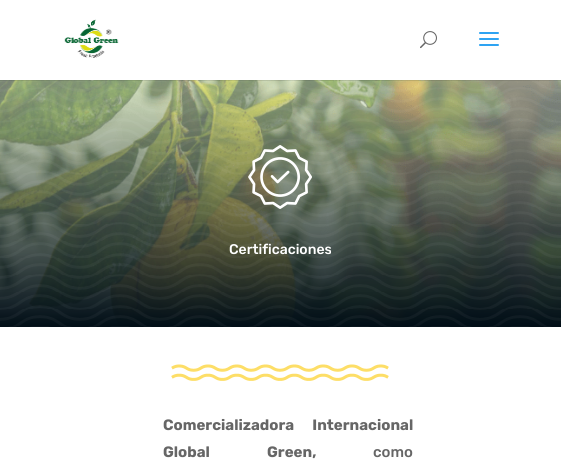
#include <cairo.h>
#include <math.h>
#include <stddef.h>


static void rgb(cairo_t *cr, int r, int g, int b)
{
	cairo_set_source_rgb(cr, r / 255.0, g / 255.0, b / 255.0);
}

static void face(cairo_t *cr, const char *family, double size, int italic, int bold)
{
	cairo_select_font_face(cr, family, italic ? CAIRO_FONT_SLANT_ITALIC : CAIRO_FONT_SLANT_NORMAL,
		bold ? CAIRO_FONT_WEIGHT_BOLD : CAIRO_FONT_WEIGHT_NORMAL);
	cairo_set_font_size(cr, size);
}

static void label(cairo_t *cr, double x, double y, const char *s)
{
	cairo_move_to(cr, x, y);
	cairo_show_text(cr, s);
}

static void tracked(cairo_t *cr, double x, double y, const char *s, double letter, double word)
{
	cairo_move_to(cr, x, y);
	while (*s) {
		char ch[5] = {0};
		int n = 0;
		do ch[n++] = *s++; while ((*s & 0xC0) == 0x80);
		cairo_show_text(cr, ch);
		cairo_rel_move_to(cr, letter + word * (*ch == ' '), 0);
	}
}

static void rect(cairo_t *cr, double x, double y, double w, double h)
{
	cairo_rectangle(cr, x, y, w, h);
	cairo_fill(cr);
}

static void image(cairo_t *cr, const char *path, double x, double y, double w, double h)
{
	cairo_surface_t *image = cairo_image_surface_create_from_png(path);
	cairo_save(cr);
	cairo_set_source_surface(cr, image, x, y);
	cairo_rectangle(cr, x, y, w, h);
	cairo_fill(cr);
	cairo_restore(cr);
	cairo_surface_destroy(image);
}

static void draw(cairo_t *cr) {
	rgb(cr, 255, 255, 255);
	cairo_paint(cr);
	image(cr, "image3.png", 0, 80, 561, 247);
	image(cr, "image4.png", 0, 80, 561, 247);
	cairo_set_source_rgba(cr, 0, 0, 0, 0.1);
	rect(cr, 0, 80, 561, 1);
	image(cr, "image0.png", 64, 19, 55, 39);
	image(cr, "image1.png", 420, 31, 17, 18);
	image(cr, "image2.png", 479, 32, 20, 14);
	image(cr, "image5.png", 248, 145, 64, 64);
	face(cr, "Rubik Medium", 14, 0, 0);
	rgb(cr, 255, 255, 255);
	label(cr, 229, 254, "Certificaciones");
	image(cr, "image6.png", 171, 364, 218, 17);
	face(cr, "Rubik", 15, 0, 1);
	rgb(cr, 102, 102, 102);
	tracked(cr, 163, 430, "Comercializadora Internacional", 0, 15);
	tracked(cr, 163, 457, "Global Green,", 0, 54);
	face(cr, "Rubik Medium", 15, 0, 0);
	label(cr, 373, 457, "como");
}

int main(void) {
	cairo_surface_t *surface = cairo_image_surface_create(CAIRO_FORMAT_RGB24, 561, 468);
	cairo_t *cr = cairo_create(surface);
	cairo_font_options_t *options = cairo_font_options_create();
	cairo_font_options_set_hint_metrics(options, CAIRO_HINT_METRICS_OFF);
	cairo_font_options_set_hint_style(options, CAIRO_HINT_STYLE_NONE);
	cairo_set_font_options(cr, options);
	cairo_set_miter_limit(cr, 4);
	draw(cr);
	cairo_surface_write_to_png(surface, "render.png");
	cairo_font_options_destroy(options);
	cairo_destroy(cr);
	cairo_surface_destroy(surface);
	return 0;
}
